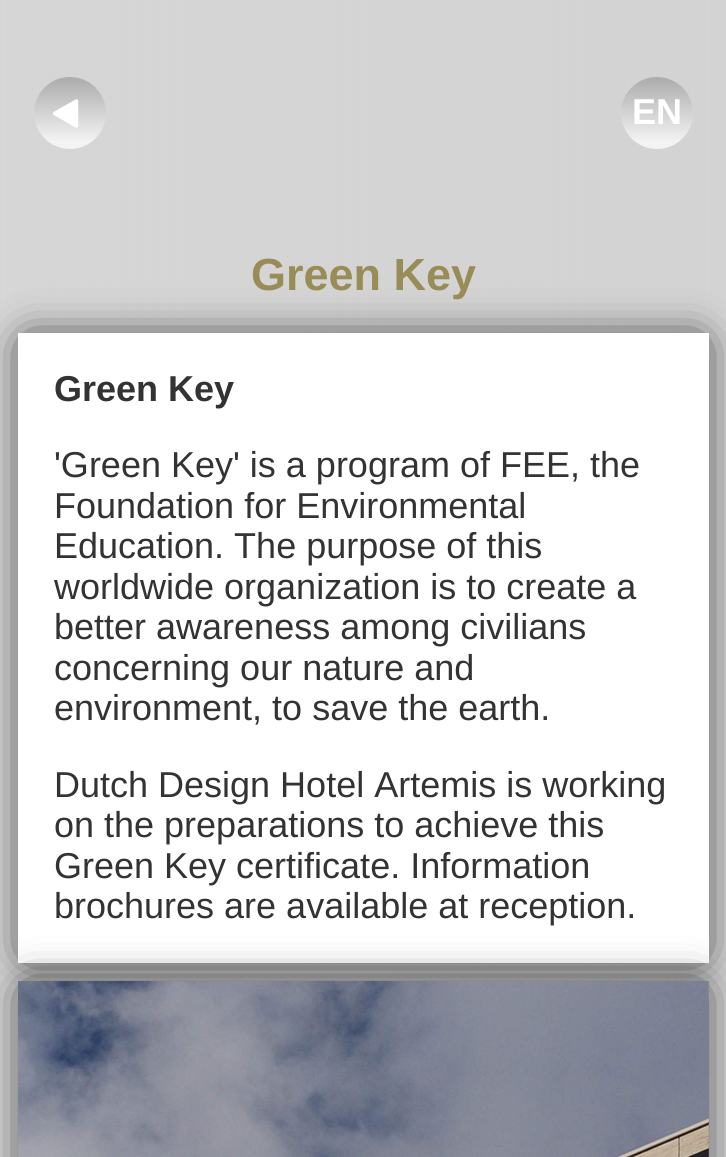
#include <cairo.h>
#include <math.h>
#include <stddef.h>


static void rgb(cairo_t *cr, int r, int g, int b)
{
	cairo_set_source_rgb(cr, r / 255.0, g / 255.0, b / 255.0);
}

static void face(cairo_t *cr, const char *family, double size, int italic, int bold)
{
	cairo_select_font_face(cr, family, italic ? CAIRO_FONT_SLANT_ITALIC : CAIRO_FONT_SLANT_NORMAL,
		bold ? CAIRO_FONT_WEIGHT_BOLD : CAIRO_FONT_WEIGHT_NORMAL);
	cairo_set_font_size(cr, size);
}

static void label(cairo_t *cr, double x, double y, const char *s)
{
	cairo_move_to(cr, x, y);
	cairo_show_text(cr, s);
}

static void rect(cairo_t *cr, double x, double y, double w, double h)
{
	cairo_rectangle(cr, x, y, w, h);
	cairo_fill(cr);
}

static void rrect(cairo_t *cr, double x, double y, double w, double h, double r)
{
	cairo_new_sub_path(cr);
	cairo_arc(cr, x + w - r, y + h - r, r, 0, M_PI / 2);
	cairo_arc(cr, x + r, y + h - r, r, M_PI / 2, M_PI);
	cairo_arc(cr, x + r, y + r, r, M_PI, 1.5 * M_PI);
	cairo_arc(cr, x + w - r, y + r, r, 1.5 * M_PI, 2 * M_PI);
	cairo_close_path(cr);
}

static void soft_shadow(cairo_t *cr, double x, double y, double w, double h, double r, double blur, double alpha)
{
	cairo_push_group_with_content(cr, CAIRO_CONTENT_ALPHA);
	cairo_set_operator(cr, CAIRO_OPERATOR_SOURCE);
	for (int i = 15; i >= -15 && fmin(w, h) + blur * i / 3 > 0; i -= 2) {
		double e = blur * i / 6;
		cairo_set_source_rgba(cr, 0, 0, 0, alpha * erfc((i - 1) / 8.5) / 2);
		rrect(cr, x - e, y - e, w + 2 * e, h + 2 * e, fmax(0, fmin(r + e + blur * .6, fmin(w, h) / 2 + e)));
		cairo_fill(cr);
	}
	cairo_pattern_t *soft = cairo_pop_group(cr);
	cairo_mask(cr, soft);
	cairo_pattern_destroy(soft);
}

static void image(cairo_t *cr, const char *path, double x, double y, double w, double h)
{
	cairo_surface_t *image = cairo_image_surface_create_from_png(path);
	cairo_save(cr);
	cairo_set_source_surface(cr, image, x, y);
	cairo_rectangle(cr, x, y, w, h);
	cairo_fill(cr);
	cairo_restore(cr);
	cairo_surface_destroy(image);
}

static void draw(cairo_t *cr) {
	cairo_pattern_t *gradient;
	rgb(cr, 255, 255, 255);
	cairo_paint(cr);
	image(cr, "image0.png", 0, 0, 726, 1157);
	gradient = cairo_pattern_create_linear(70, 77, 70, 149);
	cairo_pattern_add_color_stop_rgba(gradient, 0, 0.671, 0.671, 0.675, 1);
	cairo_pattern_add_color_stop_rgba(gradient, 0.9, 0.953, 0.953, 0.953, 1);
	cairo_set_source(cr, gradient);
	cairo_pattern_destroy(gradient);
	cairo_arc(cr, 70, 113, 36, 0, 2 * M_PI);
	cairo_fill(cr);
	rgb(cr, 255, 255, 255);
	cairo_new_path(cr);
	cairo_move_to(cr, 76.5, 101);
	cairo_line_to(cr, 76.5, 126);
	cairo_line_to(cr, 54.5, 113.5);
	cairo_line_to(cr, 76.5, 101);
	cairo_fill_preserve(cr);
	cairo_set_line_width(cr, 3.5);
	cairo_set_line_cap(cr, CAIRO_LINE_CAP_ROUND);
	cairo_set_line_join(cr, CAIRO_LINE_JOIN_ROUND);
	cairo_stroke(cr);
	gradient = cairo_pattern_create_linear(657, 77, 657, 149);
	cairo_pattern_add_color_stop_rgba(gradient, 0, 0.671, 0.671, 0.675, 1);
	cairo_pattern_add_color_stop_rgba(gradient, 0.9, 0.953, 0.953, 0.953, 1);
	cairo_set_source(cr, gradient);
	cairo_pattern_destroy(gradient);
	cairo_arc(cr, 657, 113, 36, 0, 2 * M_PI);
	cairo_fill(cr);
	face(cr, "Liberation Sans", 36, 0, 1);
	rgb(cr, 255, 255, 255);
	label(cr, 632, 124, "EN");
	rgb(cr, 0, 0, 0);
	soft_shadow(cr, 29, 344, 669, 608, 0, 22.5, 1);
	face(cr, "Liberation Sans", 45, 0, 1);
	rgb(cr, 154, 140, 87);
	label(cr, 251, 290, "Green Key");
	rgb(cr, 255, 255, 255);
	rect(cr, 18, 333, 691, 630);
	face(cr, "Liberation Sans", 36, 0, 1);
	rgb(cr, 51, 51, 51);
	label(cr, 54, 401, "Green Key");
	face(cr, "Liberation Sans", 36, 0, 0);
	label(cr, 54, 477, "'Green Key' is a program of FEE, the");
	label(cr, 54, 518, "Foundation for Environmental");
	label(cr, 54, 558, "Education. The purpose of this");
	label(cr, 54, 599, "worldwide organization is to create a");
	label(cr, 54, 639, "better awareness among civilians");
	label(cr, 54, 680, "concerning our nature and");
	label(cr, 54, 720, "environment, to save the earth.");
	label(cr, 54, 797, "Dutch Design Hotel Artemis is working");
	label(cr, 54, 837, "on the preparations to achieve this");
	label(cr, 54, 878, "Green Key certificate. Information");
	label(cr, 54, 918, "brochures are available at reception.");
	rgb(cr, 0, 0, 0);
	soft_shadow(cr, 29, 992, 669, 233, 0, 22.5, 1);
	image(cr, "image1.png", 18, 981, 691, 176);
}

int main(void) {
	cairo_surface_t *surface = cairo_image_surface_create(CAIRO_FORMAT_RGB24, 726, 1157);
	cairo_t *cr = cairo_create(surface);
	cairo_font_options_t *options = cairo_font_options_create();
	cairo_font_options_set_hint_metrics(options, CAIRO_HINT_METRICS_OFF);
	cairo_font_options_set_hint_style(options, CAIRO_HINT_STYLE_NONE);
	cairo_set_font_options(cr, options);
	cairo_set_miter_limit(cr, 4);
	draw(cr);
	cairo_surface_write_to_png(surface, "render.png");
	cairo_font_options_destroy(options);
	cairo_destroy(cr);
	cairo_surface_destroy(surface);
	return 0;
}
